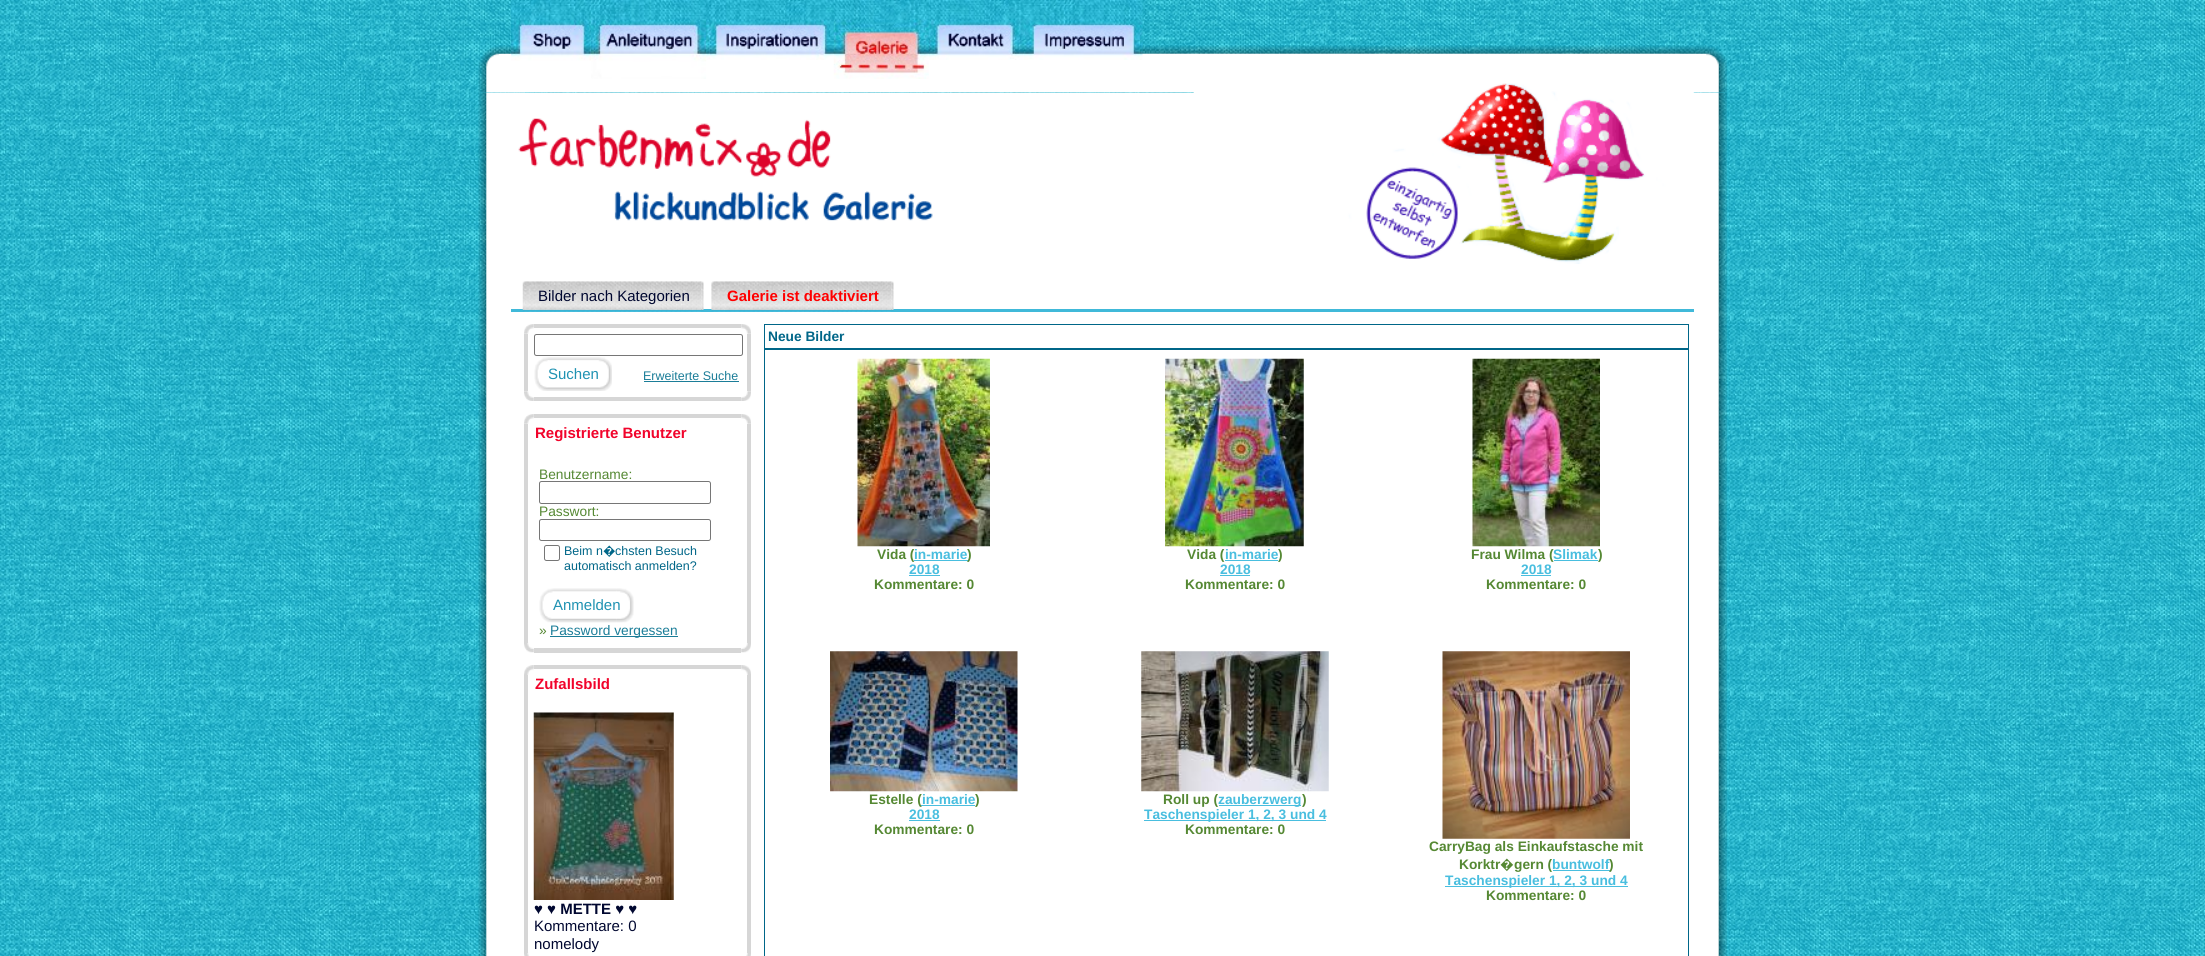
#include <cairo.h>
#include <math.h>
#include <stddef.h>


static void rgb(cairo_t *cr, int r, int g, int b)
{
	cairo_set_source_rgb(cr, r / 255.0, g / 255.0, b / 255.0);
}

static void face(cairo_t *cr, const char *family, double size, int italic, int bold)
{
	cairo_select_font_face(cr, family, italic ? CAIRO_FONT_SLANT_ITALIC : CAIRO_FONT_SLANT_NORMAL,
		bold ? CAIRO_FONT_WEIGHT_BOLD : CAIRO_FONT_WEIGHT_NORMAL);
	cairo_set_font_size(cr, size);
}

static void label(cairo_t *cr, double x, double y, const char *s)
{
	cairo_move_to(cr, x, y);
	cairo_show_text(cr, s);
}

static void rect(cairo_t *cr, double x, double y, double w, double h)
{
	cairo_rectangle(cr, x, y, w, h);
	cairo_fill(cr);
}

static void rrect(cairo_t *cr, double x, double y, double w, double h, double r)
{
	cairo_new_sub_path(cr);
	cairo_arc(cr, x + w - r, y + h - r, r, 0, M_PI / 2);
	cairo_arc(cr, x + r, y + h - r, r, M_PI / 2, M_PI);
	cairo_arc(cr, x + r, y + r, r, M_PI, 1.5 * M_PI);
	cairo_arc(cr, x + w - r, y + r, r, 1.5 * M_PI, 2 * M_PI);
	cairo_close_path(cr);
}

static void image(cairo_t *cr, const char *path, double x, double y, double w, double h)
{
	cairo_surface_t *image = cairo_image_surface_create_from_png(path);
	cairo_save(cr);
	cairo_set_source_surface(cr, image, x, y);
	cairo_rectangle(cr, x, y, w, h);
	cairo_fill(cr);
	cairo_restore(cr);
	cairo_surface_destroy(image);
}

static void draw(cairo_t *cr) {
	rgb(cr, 255, 255, 255);
	cairo_paint(cr);
	image(cr, "image0.png", 0, 0, 2205, 956);
	image(cr, "image7.png", 478, 45, 47, 48);
	image(cr, "image8.png", 525, 45, 1155, 48);
	image(cr, "image1.png", 511, 0, 81, 61);
	image(cr, "image2.png", 591, 0, 116, 79);
	image(cr, "image3.png", 706, 0, 128, 60);
	image(cr, "image4.png", 833, 0, 96, 79);
	image(cr, "image5.png", 928, 0, 96, 60);
	image(cr, "image6.png", 1023, 0, 120, 60);
	image(cr, "image9.png", 1680, 45, 47, 48);
	image(cr, "image10.png", 478, 92, 47, 864);
	rgb(cr, 255, 255, 255);
	rect(cr, 525, 93, 1155, 863);
	image(cr, "image11.png", 1680, 92, 47, 864);
	image(cr, "image12.png", 518, 118, 415, 103);
	image(cr, "image13.png", 1193, 83, 501, 181);
	rgb(cr, 64, 185, 217);
	rect(cr, 511, 309, 1183, 3);
	image(cr, "image14.png", 522, 281, 180, 31);
	image(cr, "image15.png", 701, 281, 3, 30);
	face(cr, "Liberation Sans", 15, 0, 0);
	rgb(cr, 0, 7, 48);
	label(cr, 538, 301, "Bilder nach Kategorien");
	image(cr, "image16.png", 711, 281, 181, 31);
	image(cr, "image15.png", 891, 281, 3, 30);
	face(cr, "Liberation Sans", 15, 0, 1);
	rgb(cr, 255, 0, 0);
	label(cr, 727, 301, "Galerie ist deaktiviert");
	image(cr, "image17.png", 524, 324, 10, 10);
	rgb(cr, 214, 214, 214);
	rect(cr, 534, 324, 207, 4);
	image(cr, "image18.png", 741, 324, 10, 10);
	rect(cr, 524, 334, 4, 57);
	rrect(cr, 534.5, 334.5, 208, 21, 2);
	rgb(cr, 118, 118, 118);
	cairo_set_line_width(cr, 1);
	cairo_stroke(cr);
	image(cr, "image19.png", 534, 357, 61, 34);
	image(cr, "image20.png", 595, 357, 17, 34);
	face(cr, "Liberation Sans", 15, 0, 0);
	rgb(cr, 31, 146, 178);
	label(cr, 548, 379, "Suchen");
	face(cr, "Liberation Sans", 12.5, 0, 0);
	rgb(cr, 27, 125, 152);
	label(cr, 643, 380, "Erweiterte Suche");
	rect(cr, 644, 381, 95, 1);
	rgb(cr, 214, 214, 214);
	rect(cr, 747, 334, 4, 57);
	image(cr, "image21.png", 524, 391, 10, 10);
	rect(cr, 534, 397, 207, 4);
	image(cr, "image22.png", 741, 391, 10, 10);
	image(cr, "image17.png", 524, 414, 10, 10);
	rect(cr, 534, 414, 207, 4);
	image(cr, "image18.png", 741, 414, 10, 10);
	image(cr, "image25.png", 524, 642, 10, 11);
	rect(cr, 524, 424, 4, 219);
	face(cr, "Liberation Sans", 15, 0, 1);
	rgb(cr, 241, 4, 43);
	label(cr, 535, 438, "Registrierte Benutzer");
	face(cr, "Liberation Sans", 13.75, 0, 0);
	rgb(cr, 85, 136, 51);
	label(cr, 539, 479, "Benutzername:");
	rrect(cr, 539.5, 481.5, 171, 22, 2);
	rgb(cr, 118, 118, 118);
	cairo_stroke(cr);
	rgb(cr, 85, 136, 51);
	label(cr, 539, 516, "Passwort:");
	rrect(cr, 539.5, 519.5, 171, 21, 2);
	rgb(cr, 118, 118, 118);
	cairo_stroke(cr);
	rrect(cr, 544.5, 545.5, 15, 15, 2);
	cairo_stroke(cr);
	face(cr, "Liberation Sans", 12.5, 0, 0);
	rgb(cr, 0, 102, 136);
	label(cr, 564, 555, "Beim n");
	face(cr, "Noto Sans", 12.5, 0, 0);
	label(cr, 603, 555, "�");
	face(cr, "Liberation Sans", 12.5, 0, 0);
	label(cr, 615, 555, "chsten Besuch");
	label(cr, 564, 570, "automatisch anmelden?");
	image(cr, "image23.png", 539, 588, 78, 35);
	image(cr, "image24.png", 616, 588, 18, 35);
	face(cr, "Liberation Sans", 15, 0, 0);
	rgb(cr, 31, 146, 178);
	label(cr, 553, 610, "Anmelden");
	face(cr, "Liberation Sans", 13.75, 0, 0);
	rgb(cr, 85, 136, 51);
	label(cr, 539, 635, "»");
	rgb(cr, 27, 125, 152);
	rect(cr, 550, 636, 128, 1);
	label(cr, 550, 635, "Password vergessen");
	image(cr, "image26.png", 741, 642, 10, 11);
	rgb(cr, 214, 214, 214);
	rect(cr, 747, 424, 4, 219);
	rect(cr, 534, 648, 207, 5);
	image(cr, "image27.png", 524, 665, 10, 10);
	rect(cr, 534, 665, 207, 4);
	image(cr, "image28.png", 741, 665, 10, 10);
	image(cr, "image30.png", 524, 952, 5, 4);
	rect(cr, 524, 675, 4, 278);
	face(cr, "Liberation Sans", 15, 0, 1);
	rgb(cr, 241, 4, 43);
	label(cr, 535, 689, "Zufallsbild");
	image(cr, "image29.png", 533, 712, 141, 188);
	rgb(cr, 0, 7, 48);
	label(cr, 534, 914, "♥ ♥ METTE ♥ ♥");
	face(cr, "Liberation Sans", 15, 0, 0);
	label(cr, 534, 931, "Kommentare: 0");
	label(cr, 534, 949, "nomelody");
	image(cr, "image31.png", 746, 952, 5, 4);
	rgb(cr, 214, 214, 214);
	rect(cr, 747, 675, 4, 278);
	cairo_rectangle(cr, 764.5, 324.5, 924, 24);
	rgb(cr, 0, 102, 136);
	cairo_stroke(cr);
	face(cr, "Liberation Sans", 13.75, 0, 1);
	label(cr, 768, 341, "Neue Bilder");
	cairo_rectangle(cr, 764.5, 349.5, 924, 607);
	cairo_stroke(cr);
	image(cr, "image32.png", 857, 358, 133, 189);
	rgb(cr, 85, 136, 51);
	label(cr, 877, 559, "Vida (");
	rgb(cr, 73, 190, 223);
	label(cr, 914, 559, "in-marie");
	rect(cr, 914, 560, 54, 1);
	rgb(cr, 85, 136, 51);
	label(cr, 967, 559, ")");
	rgb(cr, 73, 190, 223);
	label(cr, 909, 574, "2018");
	rect(cr, 909, 575, 31, 1);
	rgb(cr, 85, 136, 51);
	label(cr, 874, 589, "Kommentare: 0");
	image(cr, "image33.png", 1165, 358, 139, 189);
	label(cr, 1187, 559, "Vida (");
	rgb(cr, 73, 190, 223);
	label(cr, 1225, 559, "in-marie");
	rect(cr, 1225, 560, 53, 1);
	rgb(cr, 85, 136, 51);
	label(cr, 1278, 559, ")");
	rgb(cr, 73, 190, 223);
	label(cr, 1220, 574, "2018");
	rect(cr, 1220, 575, 30, 1);
	rgb(cr, 85, 136, 51);
	label(cr, 1185, 589, "Kommentare: 0");
	image(cr, "image34.png", 1472, 358, 128, 189);
	label(cr, 1471, 559, "Frau Wilma (");
	rgb(cr, 73, 190, 223);
	label(cr, 1553, 559, "Slimak");
	rect(cr, 1554, 560, 44, 1);
	rgb(cr, 85, 136, 51);
	label(cr, 1598, 559, ")");
	rgb(cr, 73, 190, 223);
	label(cr, 1521, 574, "2018");
	rect(cr, 1521, 575, 30, 1);
	rgb(cr, 85, 136, 51);
	label(cr, 1486, 589, "Kommentare: 0");
	image(cr, "image35.png", 830, 651, 188, 141);
	label(cr, 869, 804, "Estelle (");
	rgb(cr, 73, 190, 223);
	label(cr, 922, 804, "in-marie");
	rect(cr, 921, 805, 54, 1);
	rgb(cr, 85, 136, 51);
	label(cr, 975, 804, ")");
	rgb(cr, 73, 190, 223);
	label(cr, 909, 819, "2018");
	rect(cr, 909, 820, 31, 1);
	rgb(cr, 85, 136, 51);
	label(cr, 874, 834, "Kommentare: 0");
	image(cr, "image36.png", 1141, 651, 188, 141);
	label(cr, 1163, 804, "Roll up (");
	rgb(cr, 73, 190, 223);
	rect(cr, 1219, 805, 82, 1);
	label(cr, 1218, 804, "zauberzwerg");
	rgb(cr, 85, 136, 51);
	label(cr, 1302, 804, ")");
	rgb(cr, 73, 190, 223);
	rect(cr, 1144, 820, 182, 1);
	label(cr, 1144, 819, "Taschenspieler 1, 2, 3 und 4");
	rgb(cr, 85, 136, 51);
	label(cr, 1185, 834, "Kommentare: 0");
	image(cr, "image37.png", 1442, 651, 188, 188);
	label(cr, 1429, 851, "CarryBag als Einkaufstasche mit");
	label(cr, 1459, 869, "Korktr");
	face(cr, "Noto Sans Black", 13.75, 0, 0);
	label(cr, 1500, 869, "�");
	face(cr, "Liberation Sans", 13.75, 0, 1);
	label(cr, 1514, 869, "gern (");
	rgb(cr, 73, 190, 223);
	label(cr, 1552, 869, "buntwolf");
	rect(cr, 1553, 870, 57, 1);
	rgb(cr, 85, 136, 51);
	label(cr, 1609, 869, ")");
	rgb(cr, 73, 190, 223);
	rect(cr, 1445, 886, 183, 1);
	label(cr, 1445, 885, "Taschenspieler 1, 2, 3 und 4");
	rgb(cr, 85, 136, 51);
	label(cr, 1486, 900, "Kommentare: 0");
}

int main(void) {
	cairo_surface_t *surface = cairo_image_surface_create(CAIRO_FORMAT_RGB24, 2205, 956);
	cairo_t *cr = cairo_create(surface);
	cairo_font_options_t *options = cairo_font_options_create();
	cairo_font_options_set_hint_metrics(options, CAIRO_HINT_METRICS_OFF);
	cairo_font_options_set_hint_style(options, CAIRO_HINT_STYLE_NONE);
	cairo_set_font_options(cr, options);
	cairo_set_miter_limit(cr, 4);
	draw(cr);
	cairo_surface_write_to_png(surface, "render.png");
	cairo_font_options_destroy(options);
	cairo_destroy(cr);
	cairo_surface_destroy(surface);
	return 0;
}
